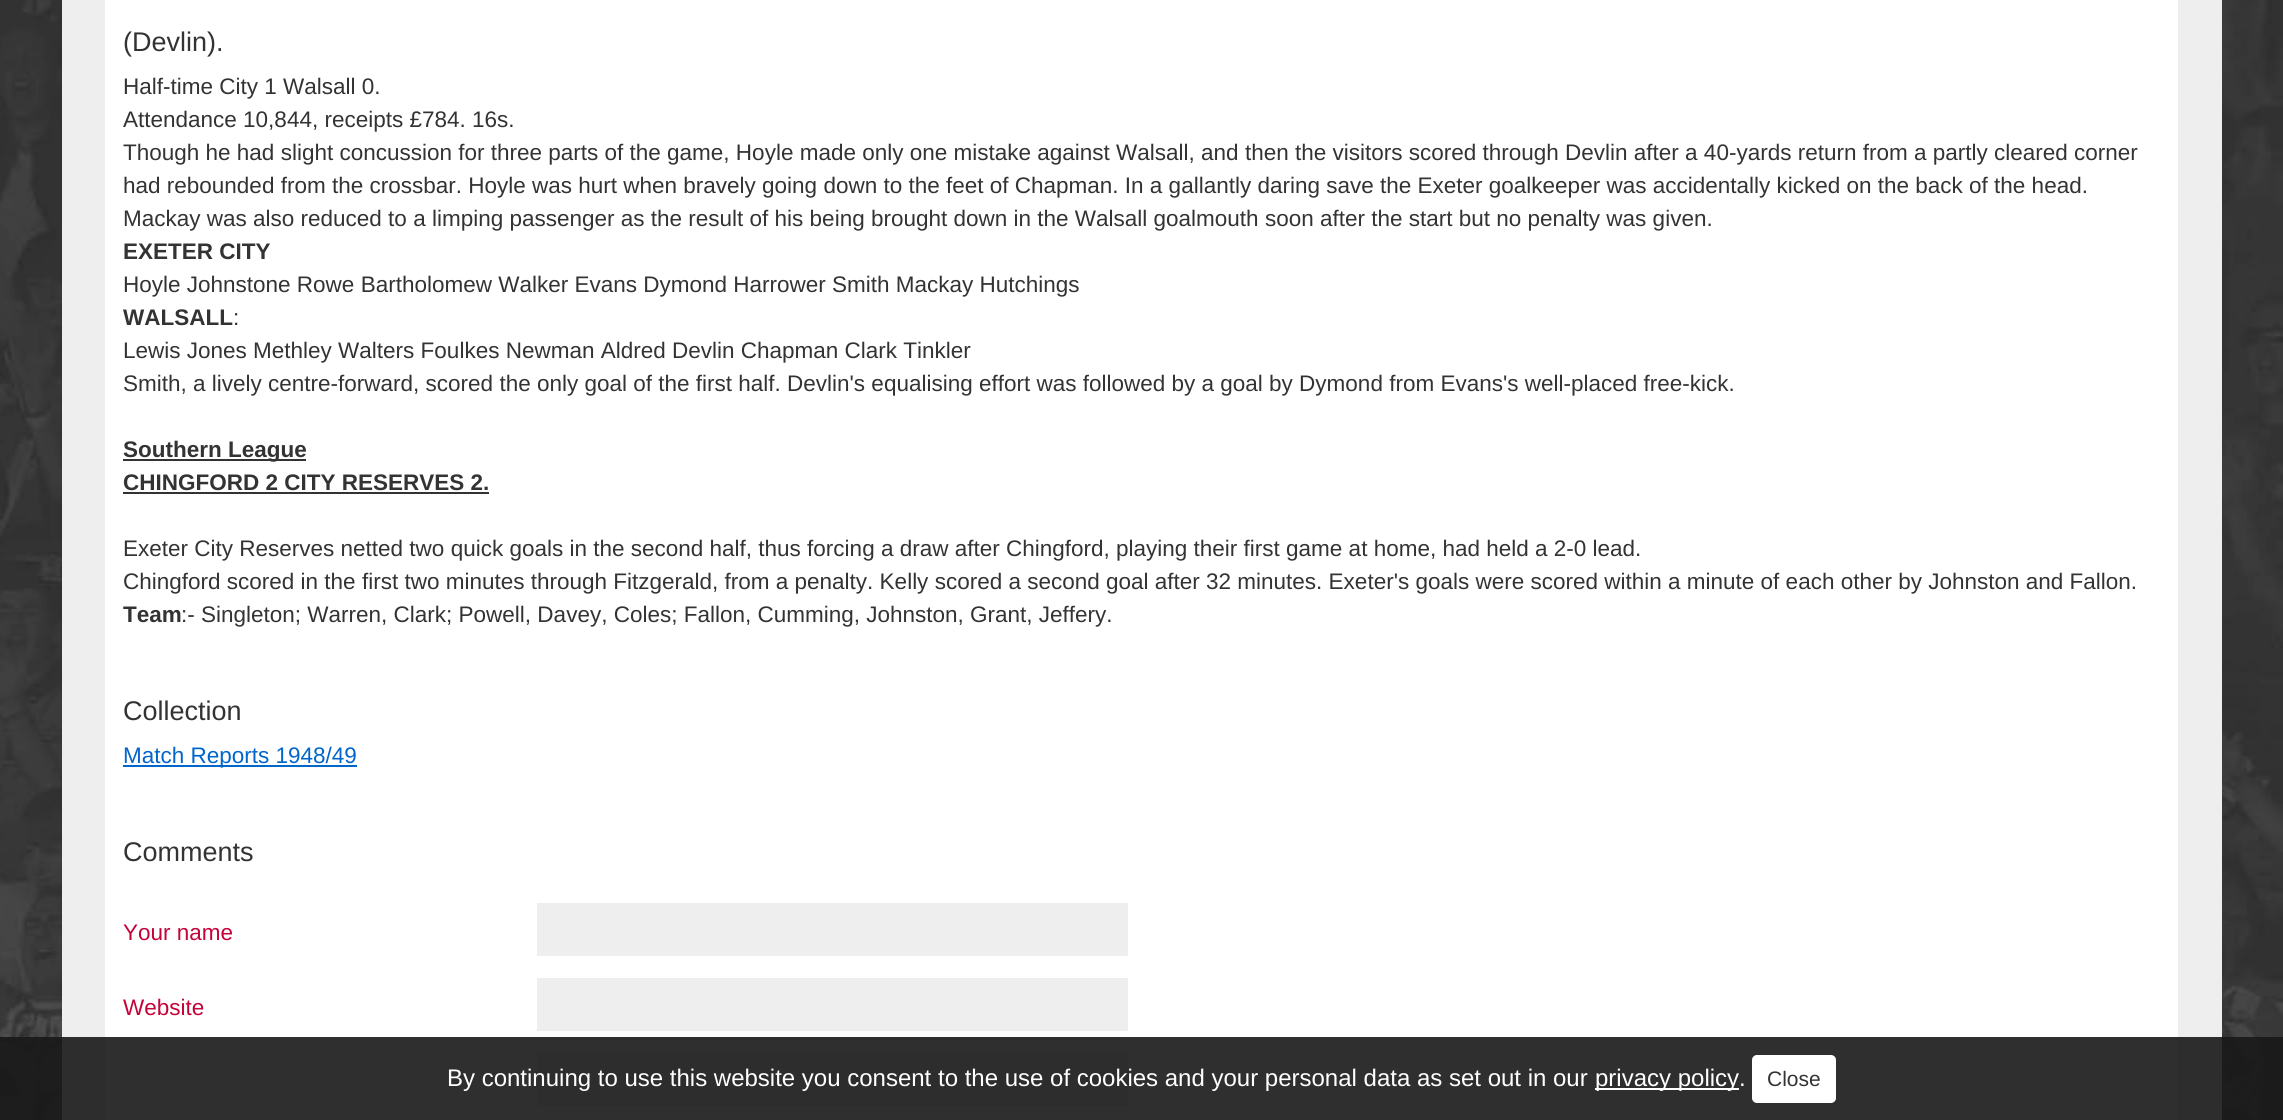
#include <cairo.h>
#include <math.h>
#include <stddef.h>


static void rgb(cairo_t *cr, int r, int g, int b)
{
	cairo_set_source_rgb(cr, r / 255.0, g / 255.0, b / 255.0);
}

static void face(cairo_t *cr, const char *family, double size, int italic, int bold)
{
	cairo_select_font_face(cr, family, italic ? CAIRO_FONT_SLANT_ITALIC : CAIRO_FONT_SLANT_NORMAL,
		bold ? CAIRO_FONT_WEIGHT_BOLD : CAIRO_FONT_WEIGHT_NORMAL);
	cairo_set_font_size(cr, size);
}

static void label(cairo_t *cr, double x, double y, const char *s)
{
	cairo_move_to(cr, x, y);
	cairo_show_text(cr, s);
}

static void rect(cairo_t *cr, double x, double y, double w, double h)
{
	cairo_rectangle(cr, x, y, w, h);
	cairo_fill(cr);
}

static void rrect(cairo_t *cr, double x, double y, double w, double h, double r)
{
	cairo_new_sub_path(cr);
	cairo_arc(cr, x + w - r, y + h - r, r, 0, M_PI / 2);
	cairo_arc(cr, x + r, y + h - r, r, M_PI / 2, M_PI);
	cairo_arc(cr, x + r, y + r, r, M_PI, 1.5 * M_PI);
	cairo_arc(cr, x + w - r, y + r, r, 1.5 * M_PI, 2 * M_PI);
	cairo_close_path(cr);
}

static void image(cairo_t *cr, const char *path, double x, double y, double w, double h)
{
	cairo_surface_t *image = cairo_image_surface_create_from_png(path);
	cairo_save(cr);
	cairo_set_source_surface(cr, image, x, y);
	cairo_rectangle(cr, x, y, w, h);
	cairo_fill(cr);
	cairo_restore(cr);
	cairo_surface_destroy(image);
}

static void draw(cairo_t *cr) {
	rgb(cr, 255, 255, 255);
	cairo_paint(cr);
	image(cr, "image0.png", 0, 0, 2283, 1120);
	rgb(cr, 238, 238, 238);
	rect(cr, 62, 0, 2160, 1120);
	rgb(cr, 255, 255, 255);
	rect(cr, 105, 0, 2073, 1120);
	face(cr, "Liberation Sans", 27, 0, 0);
	rgb(cr, 51, 51, 51);
	label(cr, 123, 51, "(Devlin).");
	face(cr, "Liberation Sans", 22.5, 0, 0);
	label(cr, 123, 94, "Half-time City 1 Walsall 0.");
	label(cr, 123, 127, "Attendance 10,844, receipts £784. 16s.");
	label(cr, 123, 160, "Though he had slight concussion for three parts of the game, Hoyle made only one mistake against Walsall, and then the visitors scored through Devlin after a 40-yards return from a partly cleared corner");
	label(cr, 123, 193, "had rebounded from the crossbar. Hoyle was hurt when bravely going down to the feet of Chapman. In a gallantly daring save the Exeter goalkeeper was accidentally kicked on the back of the head.");
	label(cr, 123, 226, "Mackay was also reduced to a limping passenger as the result of his being brought down in the Walsall goalmouth soon after the start but no penalty was given.");
	face(cr, "Liberation Sans", 22.5, 0, 1);
	label(cr, 123, 259, "EXETER CITY");
	face(cr, "Liberation Sans", 22.5, 0, 0);
	label(cr, 123, 292, "Hoyle Johnstone Rowe Bartholomew Walker Evans Dymond Harrower Smith Mackay Hutchings");
	face(cr, "Liberation Sans", 22.5, 0, 1);
	label(cr, 123, 325, "WALSALL");
	face(cr, "Liberation Sans", 22.5, 0, 0);
	label(cr, 233, 325, ":");
	label(cr, 123, 358, "Lewis Jones Methley Walters Foulkes Newman Aldred Devlin Chapman Clark Tinkler");
	label(cr, 123, 391, "Smith, a lively centre-forward, scored the only goal of the first half. Devlin's equalising effort was followed by a goal by Dymond from Evans's well-placed free-kick.");
	rect(cr, 123, 459, 183, 2);
	face(cr, "Liberation Sans", 22.5, 0, 1);
	label(cr, 123, 457, "Southern League");
	label(cr, 123, 490, "CHINGFORD 2 CITY RESERVES 2.");
	rect(cr, 123, 492, 366, 2);
	face(cr, "Liberation Sans", 22.5, 0, 0);
	label(cr, 123, 556, "Exeter City Reserves netted two quick goals in the second half, thus forcing a draw after Chingford, playing their first game at home, had held a 2-0 lead.");
	label(cr, 123, 589, "Chingford scored in the first two minutes through Fitzgerald, from a penalty. Kelly scored a second goal after 32 minutes. Exeter's goals were scored within a minute of each other by Johnston and Fallon.");
	face(cr, "Liberation Sans", 22.5, 0, 1);
	label(cr, 123, 622, "Team");
	face(cr, "Liberation Sans", 22.5, 0, 0);
	label(cr, 181, 622, ":- Singleton; Warren, Clark; Powell, Davey, Coles; Fallon, Cumming, Johnston, Grant, Jeffery.");
	face(cr, "Liberation Sans", 27, 0, 0);
	label(cr, 123, 720, "Collection");
	rgb(cr, 0, 102, 204);
	rect(cr, 123, 765, 234, 2);
	face(cr, "Liberation Sans", 22.5, 0, 0);
	label(cr, 123, 763, "Match Reports 1948/49");
	face(cr, "Liberation Sans", 27, 0, 0);
	rgb(cr, 51, 51, 51);
	label(cr, 123, 861, "Comments");
	face(cr, "Liberation Sans", 22.5, 0, 0);
	rgb(cr, 195, 3, 57);
	label(cr, 123, 940, "Your name");
	rgb(cr, 238, 238, 238);
	rect(cr, 537, 903, 591, 53);
	rgb(cr, 195, 3, 57);
	label(cr, 123, 1015, "Website");
	rgb(cr, 238, 238, 238);
	rect(cr, 537, 978, 591, 53);
	rect(cr, 537, 1053, 591, 53);
	cairo_set_source_rgba(cr, 0.098, 0.098, 0.098, 0.9);
	rect(cr, 0, 1037, 2283, 83);
	face(cr, "Liberation Sans", 24, 0, 0);
	rgb(cr, 255, 255, 255);
	label(cr, 447, 1086, "By continuing to use this website you consent to the use of cookies and your personal data as set out in our");
	rect(cr, 1595, 1088, 144, 2);
	label(cr, 1595, 1086, "privacy policy.");
	rrect(cr, 1752, 1055, 84, 48, 5);
	cairo_fill(cr);
	face(cr, "Liberation Sans", 21, 0, 0);
	rgb(cr, 51, 51, 51);
	label(cr, 1767, 1086, "Close");
}

int main(void) {
	cairo_surface_t *surface = cairo_image_surface_create(CAIRO_FORMAT_RGB24, 2283, 1120);
	cairo_t *cr = cairo_create(surface);
	cairo_font_options_t *options = cairo_font_options_create();
	cairo_font_options_set_hint_metrics(options, CAIRO_HINT_METRICS_OFF);
	cairo_font_options_set_hint_style(options, CAIRO_HINT_STYLE_NONE);
	cairo_set_font_options(cr, options);
	cairo_set_miter_limit(cr, 4);
	draw(cr);
	cairo_surface_write_to_png(surface, "render.png");
	cairo_font_options_destroy(options);
	cairo_destroy(cr);
	cairo_surface_destroy(surface);
	return 0;
}
